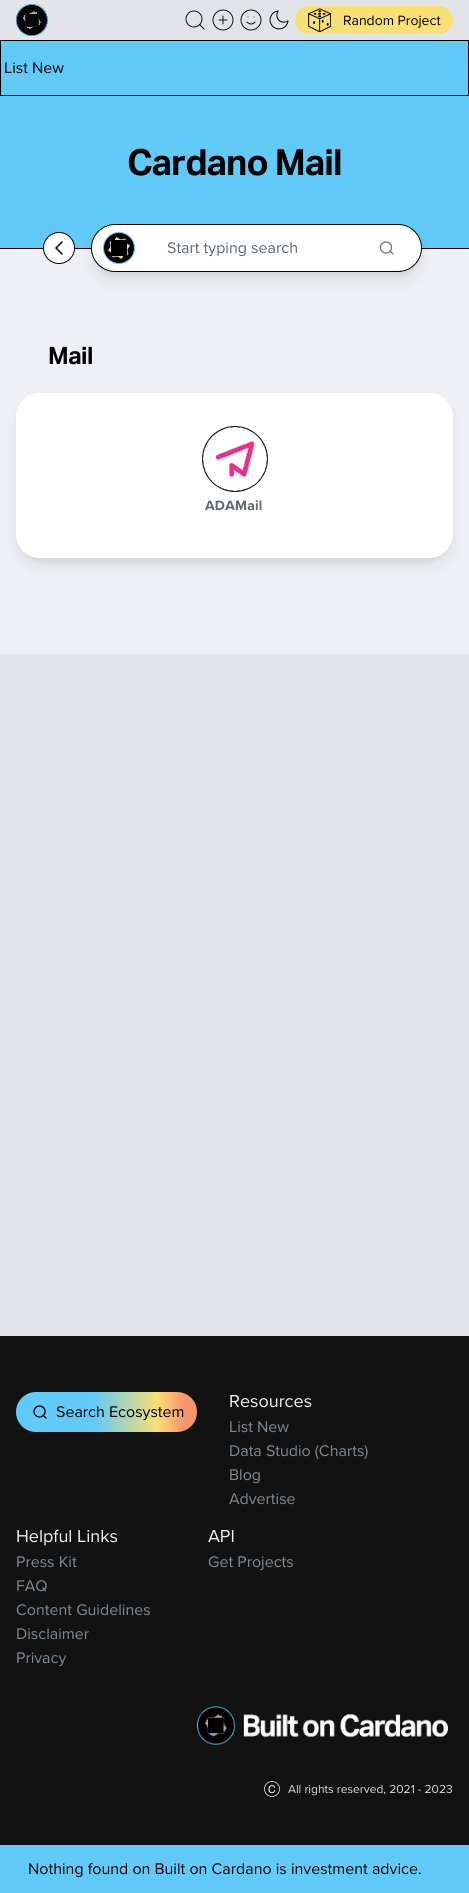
#include <cairo.h>
#include <math.h>
#include <stddef.h>


static void rgb(cairo_t *cr, int r, int g, int b)
{
	cairo_set_source_rgb(cr, r / 255.0, g / 255.0, b / 255.0);
}

static void face(cairo_t *cr, const char *family, double size, int italic, int bold)
{
	cairo_select_font_face(cr, family, italic ? CAIRO_FONT_SLANT_ITALIC : CAIRO_FONT_SLANT_NORMAL,
		bold ? CAIRO_FONT_WEIGHT_BOLD : CAIRO_FONT_WEIGHT_NORMAL);
	cairo_set_font_size(cr, size);
}

static void label(cairo_t *cr, double x, double y, const char *s)
{
	cairo_move_to(cr, x, y);
	cairo_show_text(cr, s);
}

static void tracked(cairo_t *cr, double x, double y, const char *s, double letter, double word)
{
	cairo_move_to(cr, x, y);
	while (*s) {
		char ch[5] = {0};
		int n = 0;
		do ch[n++] = *s++; while ((*s & 0xC0) == 0x80);
		cairo_show_text(cr, ch);
		cairo_rel_move_to(cr, letter + word * (*ch == ' '), 0);
	}
}

static void rect(cairo_t *cr, double x, double y, double w, double h)
{
	cairo_rectangle(cr, x, y, w, h);
	cairo_fill(cr);
}

static void rrect(cairo_t *cr, double x, double y, double w, double h, double r)
{
	cairo_new_sub_path(cr);
	cairo_arc(cr, x + w - r, y + h - r, r, 0, M_PI / 2);
	cairo_arc(cr, x + r, y + h - r, r, M_PI / 2, M_PI);
	cairo_arc(cr, x + r, y + r, r, M_PI, 1.5 * M_PI);
	cairo_arc(cr, x + w - r, y + r, r, 1.5 * M_PI, 2 * M_PI);
	cairo_close_path(cr);
}

static void soft_shadow(cairo_t *cr, double x, double y, double w, double h, double r, double blur, double alpha)
{
	cairo_push_group_with_content(cr, CAIRO_CONTENT_ALPHA);
	cairo_set_operator(cr, CAIRO_OPERATOR_SOURCE);
	for (int i = 15; i >= -15 && fmin(w, h) + blur * i / 3 > 0; i -= 2) {
		double e = blur * i / 6;
		cairo_set_source_rgba(cr, 0, 0, 0, alpha * erfc((i - 1) / 8.5) / 2);
		rrect(cr, x - e, y - e, w + 2 * e, h + 2 * e, fmax(0, fmin(r + e + blur * .6, fmin(w, h) / 2 + e)));
		cairo_fill(cr);
	}
	cairo_pattern_t *soft = cairo_pop_group(cr);
	cairo_mask(cr, soft);
	cairo_pattern_destroy(soft);
}

static void image(cairo_t *cr, const char *path, double x, double y, double w, double h)
{
	cairo_surface_t *image = cairo_image_surface_create_from_png(path);
	cairo_save(cr);
	cairo_set_source_surface(cr, image, x, y);
	cairo_rectangle(cr, x, y, w, h);
	cairo_fill(cr);
	cairo_restore(cr);
	cairo_surface_destroy(image);
}

static void draw(cairo_t *cr) {
	cairo_pattern_t *gradient;
	rgb(cr, 226, 228, 233);
	cairo_paint(cr);
	image(cr, "image0.png", 16, 4, 32, 32);
	cairo_arc(cr, 194, 19, 8, 0, 2 * M_PI);
	rgb(cr, 18, 18, 18);
	cairo_set_line_width(cr, 1);
	cairo_stroke(cr);
	cairo_new_path(cr);
	cairo_move_to(cr, 204, 29);
	cairo_line_to(cr, 199.5, 24.5);
	cairo_set_line_cap(cr, CAIRO_LINE_CAP_ROUND);
	cairo_set_line_join(cr, CAIRO_LINE_JOIN_ROUND);
	cairo_stroke(cr);
	image(cr, "image1.png", 212, 9, 22, 22);
	image(cr, "image2.png", 240, 9, 22, 22);
	image(cr, "image3.png", 269, 10, 20, 20);
	rgb(cr, 249, 224, 115);
	rrect(cr, 295, 6, 158, 28, 14);
	cairo_fill(cr);
	image(cr, "image4.png", 308, 8, 23, 24);
	face(cr, "Proxima Nova", 14, 0, 0);
	rgb(cr, 0, 0, 0);
	label(cr, 343, 25, "Random Project");
	rgb(cr, 97, 202, 248);
	rect(cr, 0, 41, 469, 207);
	cairo_rectangle(cr, 0.5, 40.5, 468, 55);
	rgb(cr, 0, 0, 0);
	cairo_set_line_cap(cr, CAIRO_LINE_CAP_BUTT);
	cairo_set_line_join(cr, CAIRO_LINE_JOIN_MITER);
	cairo_stroke(cr);
	face(cr, "Proxima Nova", 16, 0, 0);
	label(cr, 4, 73, "List New");
	face(cr, "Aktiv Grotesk", 36, 0, 1);
	tracked(cr, 127, 175, "Cardano Mail", -0.9, 0);
	rgb(cr, 238, 240, 245);
	rect(cr, 0, 249, 469, 405);
	rgb(cr, 0, 0, 0);
	rect(cr, 0, 248, 469, 1);
	rgb(cr, 255, 255, 255);
	cairo_new_path(cr);
	cairo_arc(cr, 59, 248, 15.5, 0, 2 * M_PI);
	cairo_fill_preserve(cr);
	rgb(cr, 0, 0, 0);
	cairo_stroke(cr);
	cairo_new_path(cr);
	cairo_move_to(cr, 62, 254);
	cairo_line_to(cr, 56, 248);
	cairo_line_to(cr, 62, 242);
	cairo_set_line_width(cr, 1.5);
	cairo_set_line_cap(cr, CAIRO_LINE_CAP_ROUND);
	cairo_set_line_join(cr, CAIRO_LINE_JOIN_ROUND);
	cairo_stroke(cr);
	rgb(cr, 18, 18, 18);
	soft_shadow(cr, 93, 230, 327, 44, 22, 3, 0.05);
	soft_shadow(cr, 94, 237, 325, 42, 21, 7.5, 0.1);
	rgb(cr, 255, 255, 255);
	rrect(cr, 91.5, 224.5, 330, 47, 23.5);
	cairo_fill_preserve(cr);
	rgb(cr, 0, 0, 0);
	cairo_set_line_width(cr, 1);
	cairo_set_line_cap(cr, CAIRO_LINE_CAP_BUTT);
	cairo_set_line_join(cr, CAIRO_LINE_JOIN_MITER);
	cairo_stroke(cr);
	cairo_arc(cr, 119, 248, 15.5, 0, 2 * M_PI);
	cairo_fill_preserve(cr);
	rgb(cr, 97, 202, 248);
	cairo_stroke(cr);
	rgb(cr, 249, 224, 115);
	cairo_new_path(cr);
	cairo_move_to(cr, 116.5, 237);
	cairo_line_to(cr, 130, 245.5);
	cairo_line_to(cr, 121.5, 259);
	cairo_line_to(cr, 108, 250.5);
	cairo_close_path(cr);
	cairo_fill(cr);
	rgb(cr, 248, 150, 107);
	cairo_new_path(cr);
	cairo_move_to(cr, 109.5, 242);
	cairo_line_to(cr, 125, 238.5);
	cairo_line_to(cr, 128.5, 254);
	cairo_line_to(cr, 113, 257.5);
	cairo_close_path(cr);
	cairo_fill(cr);
	rgb(cr, 97, 202, 248);
	cairo_new_path(cr);
	cairo_move_to(cr, 110, 241);
	cairo_line_to(cr, 126, 239);
	cairo_line_to(cr, 128, 255);
	cairo_line_to(cr, 112, 257);
	cairo_close_path(cr);
	cairo_fill(cr);
	rgb(cr, 0, 0, 0);
	rect(cr, 111, 240, 16, 16);
	face(cr, "Proxima Nova", 16, 0, 0);
	rgb(cr, 92, 103, 112);
	label(cr, 167, 253, "Start typing search");
	cairo_new_path(cr);
	cairo_arc(cr, 386, 247.5, 5.5, 0, 2 * M_PI);
	rgb(cr, 107, 118, 128);
	cairo_set_line_width(cr, 1.3);
	cairo_stroke(cr);
	cairo_new_path(cr);
	cairo_move_to(cr, 393, 254);
	cairo_line_to(cr, 390, 251);
	cairo_set_line_cap(cr, CAIRO_LINE_CAP_ROUND);
	cairo_set_line_join(cr, CAIRO_LINE_JOIN_ROUND);
	cairo_stroke(cr);
	face(cr, "Aktiv Grotesk", 24, 0, 1);
	rgb(cr, 0, 0, 0);
	tracked(cr, 48, 364, "Mail", -0.5, 0);
	rgb(cr, 18, 18, 18);
	soft_shadow(cr, 18, 399, 433, 161, 22, 3, 0.05);
	soft_shadow(cr, 19, 406, 431, 159, 21, 7.5, 0.1);
	rgb(cr, 255, 255, 255);
	rrect(cr, 16, 393, 437, 165, 24);
	cairo_fill(cr);
	cairo_arc(cr, 235, 459, 32.5, 0, 2 * M_PI);
	rgb(cr, 18, 18, 18);
	cairo_set_line_width(cr, 1);
	cairo_set_line_cap(cr, CAIRO_LINE_CAP_BUTT);
	cairo_set_line_join(cr, CAIRO_LINE_JOIN_MITER);
	cairo_stroke(cr);
	rgb(cr, 0, 0, 0);
	cairo_arc(cr, 235, 459, 32, 0, 2 * M_PI);
	cairo_fill(cr);
	image(cr, "image5.png", 203, 427, 64, 64);
	face(cr, "Proxima Nova", 14, 0, 1);
	rgb(cr, 92, 103, 112);
	tracked(cr, 205, 510, "ADAMail", 0.25, 0);
	rgb(cr, 18, 18, 18);
	rect(cr, 0, 1336, 469, 509);
	gradient = cairo_pattern_create_linear(197, 1412, 16, 1412);
	cairo_pattern_add_color_stop_rgba(gradient, 0, 0.973, 0.588, 0.42, 1);
	cairo_pattern_add_color_stop_rgba(gradient, 0.07, 0.973, 0.588, 0.42, 1);
	cairo_pattern_add_color_stop_rgba(gradient, 0.22, 0.976, 0.875, 0.451, 1);
	cairo_pattern_add_color_stop_rgba(gradient, 0.57, 0.38, 0.792, 0.973, 1);
	cairo_pattern_add_color_stop_rgba(gradient, 0.98, 0.38, 0.792, 0.973, 1);
	cairo_set_source(cr, gradient);
	cairo_pattern_destroy(gradient);
	rrect(cr, 16, 1392, 181, 40, 20);
	cairo_fill(cr);
	cairo_arc(cr, 39.5, 1411.5, 5.5, 0, 2 * M_PI);
	rgb(cr, 0, 0, 0);
	cairo_set_line_width(cr, 1.3);
	cairo_stroke(cr);
	cairo_new_path(cr);
	cairo_move_to(cr, 46, 1418);
	cairo_line_to(cr, 43, 1415);
	cairo_set_line_cap(cr, CAIRO_LINE_CAP_ROUND);
	cairo_set_line_join(cr, CAIRO_LINE_JOIN_ROUND);
	cairo_stroke(cr);
	face(cr, "Proxima Nova", 16, 0, 0);
	label(cr, 56, 1417, "Search Ecosystem");
	face(cr, "Proxima Nova", 18, 0, 0);
	rgb(cr, 240, 242, 244);
	label(cr, 229, 1407, "Resources");
	face(cr, "Proxima Nova", 16, 0, 0);
	rgb(cr, 128, 138, 147);
	label(cr, 229, 1432, "List New");
	label(cr, 229, 1456, "Data Studio (Charts)");
	label(cr, 229, 1480, "Blog");
	label(cr, 229, 1504, "Advertise");
	face(cr, "Proxima Nova", 18, 0, 0);
	rgb(cr, 240, 242, 244);
	label(cr, 16, 1542, "Helpful Links");
	face(cr, "Proxima Nova", 16, 0, 0);
	rgb(cr, 128, 138, 147);
	label(cr, 16, 1567, "Press Kit");
	label(cr, 16, 1591, "FAQ");
	label(cr, 16, 1615, "Content Guidelines");
	label(cr, 16, 1639, "Disclaimer");
	label(cr, 16, 1663, "Privacy");
	face(cr, "Proxima Nova", 18, 0, 0);
	rgb(cr, 240, 242, 244);
	label(cr, 208, 1542, "API");
	face(cr, "Proxima Nova", 16, 0, 0);
	rgb(cr, 128, 138, 147);
	label(cr, 208, 1567, "Get Projects");
	image(cr, "image6.png", 197, 1706, 251, 39);
	image(cr, "image7.png", 264, 1781, 16, 16);
	face(cr, "Proxima Nova", 12, 0, 0);
	rgb(cr, 214, 220, 225);
	label(cr, 288, 1793, "All rights reserved, 2021 - 2023");
	rgb(cr, 97, 202, 248);
	rect(cr, 0, 1845, 469, 48);
	face(cr, "Proxima Nova", 16, 0, 0);
	rgb(cr, 0, 0, 0);
	label(cr, 28, 1874, "Nothing found on Built on Cardano is investment advice.");
}

int main(void) {
	cairo_surface_t *surface = cairo_image_surface_create(CAIRO_FORMAT_RGB24, 469, 1893);
	cairo_t *cr = cairo_create(surface);
	cairo_font_options_t *options = cairo_font_options_create();
	cairo_font_options_set_hint_metrics(options, CAIRO_HINT_METRICS_OFF);
	cairo_font_options_set_hint_style(options, CAIRO_HINT_STYLE_NONE);
	cairo_set_font_options(cr, options);
	cairo_set_miter_limit(cr, 4);
	draw(cr);
	cairo_surface_write_to_png(surface, "render.png");
	cairo_font_options_destroy(options);
	cairo_destroy(cr);
	cairo_surface_destroy(surface);
	return 0;
}
